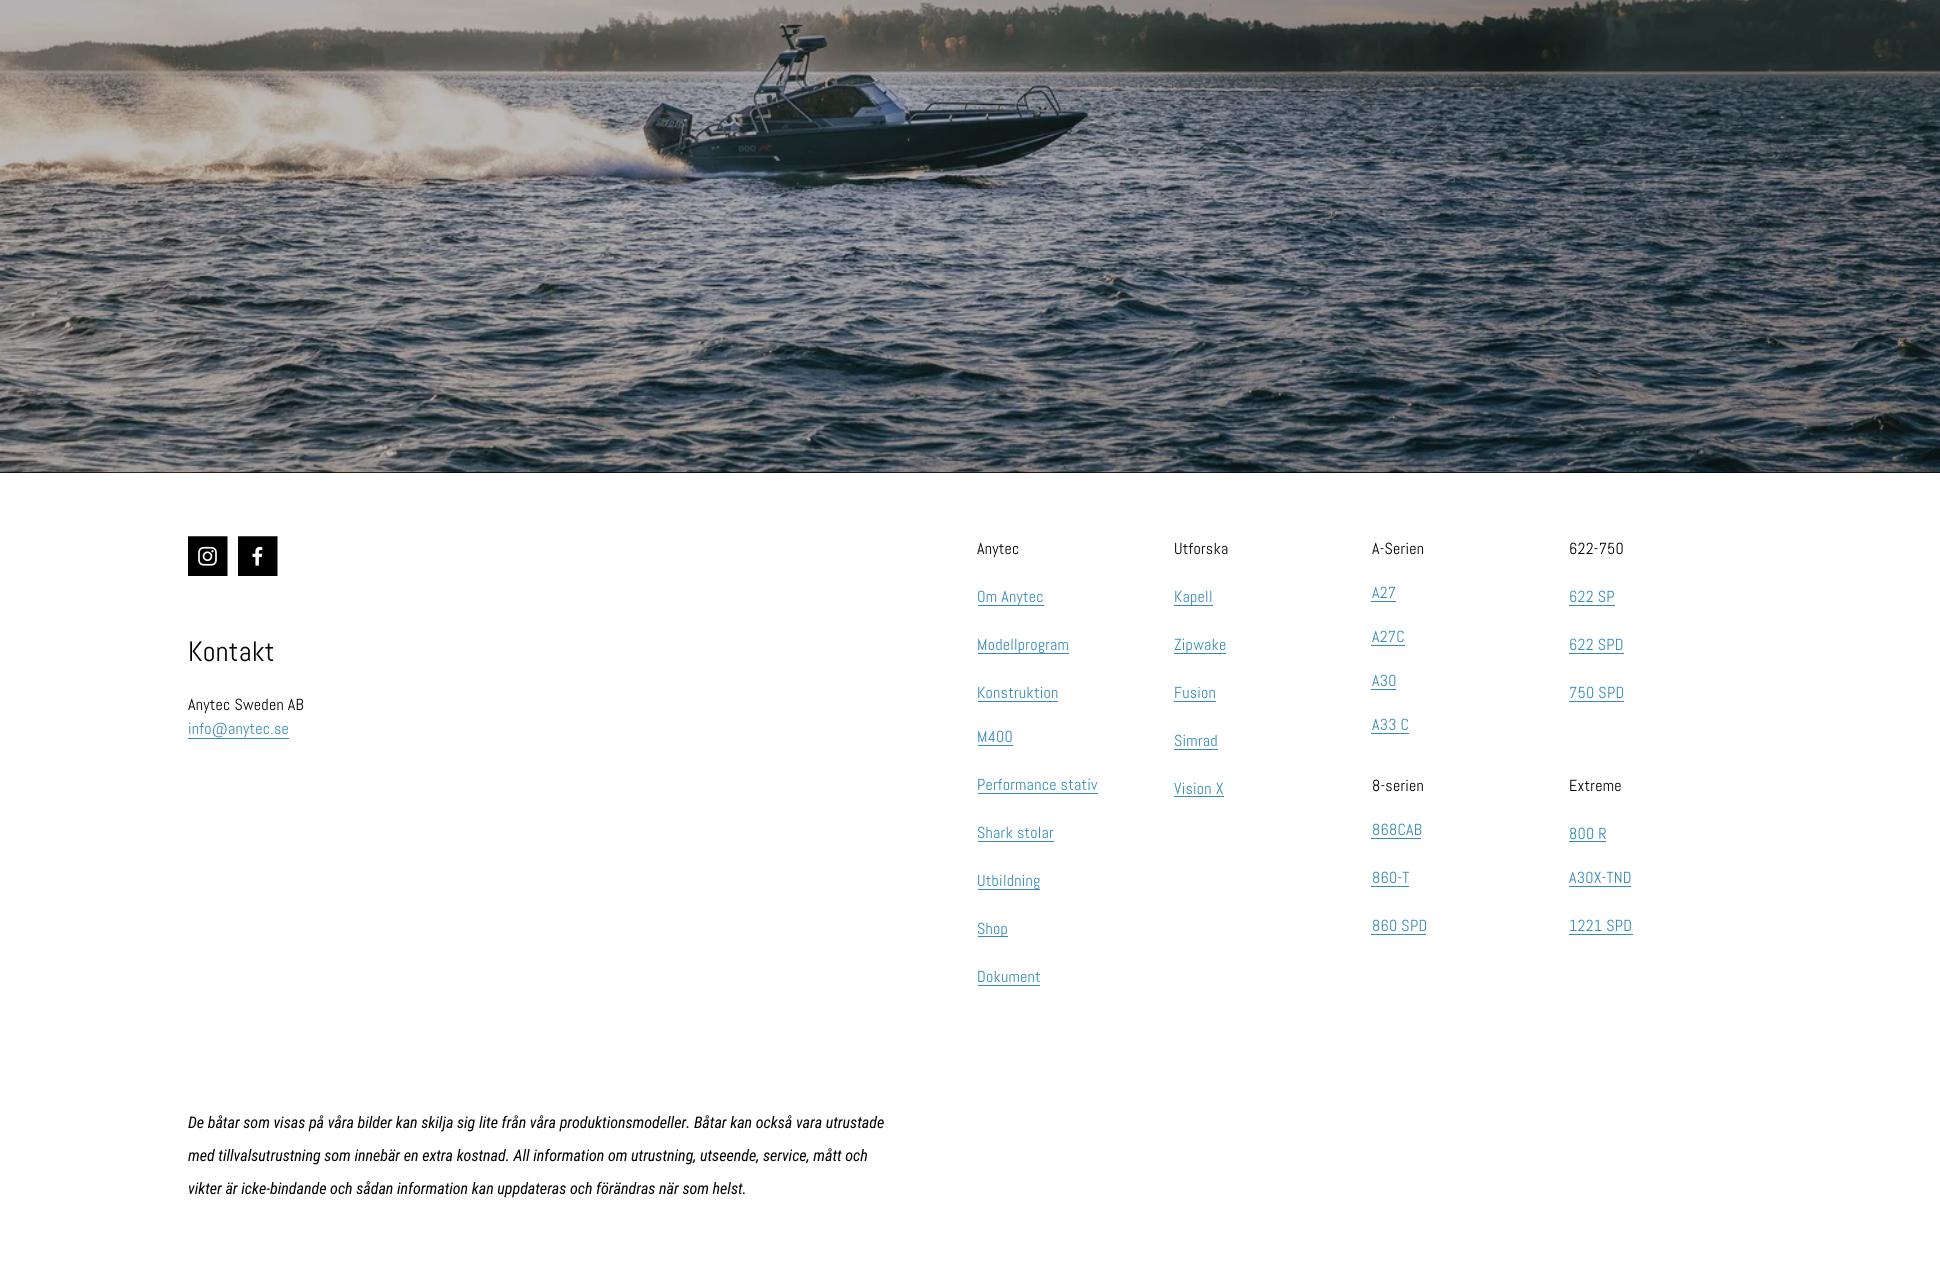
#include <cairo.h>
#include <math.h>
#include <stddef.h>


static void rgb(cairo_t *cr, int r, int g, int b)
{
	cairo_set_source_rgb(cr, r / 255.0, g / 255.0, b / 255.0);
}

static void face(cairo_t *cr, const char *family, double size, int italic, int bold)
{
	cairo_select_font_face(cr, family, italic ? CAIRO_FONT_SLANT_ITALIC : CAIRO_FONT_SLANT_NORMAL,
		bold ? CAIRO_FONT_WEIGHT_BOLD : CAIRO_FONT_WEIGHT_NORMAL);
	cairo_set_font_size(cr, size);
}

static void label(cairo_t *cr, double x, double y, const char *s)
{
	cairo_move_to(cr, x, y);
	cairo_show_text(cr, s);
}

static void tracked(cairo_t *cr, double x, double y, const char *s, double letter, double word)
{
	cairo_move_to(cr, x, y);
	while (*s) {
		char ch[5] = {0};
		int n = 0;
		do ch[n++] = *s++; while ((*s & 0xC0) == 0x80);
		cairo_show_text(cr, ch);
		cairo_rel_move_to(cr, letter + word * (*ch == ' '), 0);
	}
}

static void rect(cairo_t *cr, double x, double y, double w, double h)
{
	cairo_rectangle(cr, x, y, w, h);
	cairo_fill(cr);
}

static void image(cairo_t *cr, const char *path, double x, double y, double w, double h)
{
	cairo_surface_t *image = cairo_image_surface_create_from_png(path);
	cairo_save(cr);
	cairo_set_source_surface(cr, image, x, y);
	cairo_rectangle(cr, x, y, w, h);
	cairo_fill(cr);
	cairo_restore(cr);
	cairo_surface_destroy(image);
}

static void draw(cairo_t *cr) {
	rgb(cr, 255, 255, 255);
	cairo_paint(cr);
	rgb(cr, 0, 0, 0);
	rect(cr, 0, 472, 1940, 1);
	image(cr, "image0.png", 0, 0, 1940, 473);
	image(cr, "image1.png", 188, 536, 40, 40);
	image(cr, "image2.png", 238, 536, 40, 40);
	face(cr, "Abel", 16, 0, 0);
	tracked(cr, 977, 554, "Anytec", 0.25, 0);
	rgb(cr, 54, 138, 183);
	rect(cr, 978, 605, 66, 1);
	tracked(cr, 977, 602, "Om Anytec", 0.25, 0);
	rect(cr, 978, 653, 91, 1);
	tracked(cr, 977, 650, "Modellprogram", 0.25, 0);
	tracked(cr, 977, 698, "Konstruktion", 0.25, 0);
	rect(cr, 978, 701, 80, 1);
	tracked(cr, 977, 742, "M400", 0.25, 0);
	rect(cr, 978, 745, 35, 1);
	tracked(cr, 977, 790, "Performance stativ", 0.25, 0);
	rect(cr, 978, 793, 120, 1);
	tracked(cr, 977, 838, "Shark stolar", 0.25, 0);
	rect(cr, 978, 841, 76, 1);
	rect(cr, 978, 889, 62, 1);
	tracked(cr, 977, 886, "Utbildning", 0.25, 0);
	rect(cr, 978, 936, 30, 1);
	tracked(cr, 977, 934, "Shop", 0.25, 0);
	tracked(cr, 977, 982, "Dokument", 0.25, 0);
	rect(cr, 978, 985, 62, 1);
	rgb(cr, 0, 0, 0);
	tracked(cr, 1174, 554, "Utforska", 0.25, 0);
	rgb(cr, 54, 138, 183);
	rect(cr, 1174, 605, 39, 1);
	tracked(cr, 1174, 602, "Kapell", 0.25, 0);
	rect(cr, 1174, 653, 52, 1);
	tracked(cr, 1174, 650, "Zipwake", 0.25, 0);
	tracked(cr, 1174, 698, "Fusion", 0.25, 0);
	rect(cr, 1174, 701, 42, 1);
	tracked(cr, 1174, 746, "Simrad", 0.25, 0);
	rect(cr, 1174, 749, 44, 1);
	tracked(cr, 1174, 794, "Vision X", 0.25, 0);
	rect(cr, 1174, 796, 50, 1);
	rgb(cr, 0, 0, 0);
	tracked(cr, 1372, 554, "A-Serien", 0.25, 0);
	rgb(cr, 54, 138, 183);
	tracked(cr, 1372, 598, "A27", 0.25, 0);
	rect(cr, 1371, 601, 25, 1);
	tracked(cr, 1372, 642, "A27C", 0.25, 0);
	rect(cr, 1371, 645, 34, 1);
	tracked(cr, 1372, 686, "A30", 0.25, 0);
	rect(cr, 1371, 689, 25, 1);
	tracked(cr, 1372, 730, "A33 C", 0.25, 0);
	rect(cr, 1371, 733, 38, 1);
	rgb(cr, 0, 0, 0);
	tracked(cr, 1569, 554, "622-750", 0.25, 0);
	rgb(cr, 54, 138, 183);
	tracked(cr, 1569, 602, "622 SP", 0.25, 0);
	rect(cr, 1569, 605, 46, 1);
	tracked(cr, 1569, 650, "622 SPD", 0.25, 0);
	rect(cr, 1569, 653, 55, 1);
	tracked(cr, 1569, 698, "750 SPD", 0.25, 0);
	rect(cr, 1569, 701, 55, 1);
	face(cr, "Abel", 28, 0, 0);
	rgb(cr, 0, 0, 0);
	tracked(cr, 188, 661, "Kontakt", 0.25, 0);
	face(cr, "Abel", 16, 0, 0);
	tracked(cr, 188, 710, "Anytec Sweden AB", 0.25, 0);
	rgb(cr, 54, 138, 183);
	tracked(cr, 188, 734, "info@anytec.se", 0.25, 0);
	rect(cr, 188, 738, 101, 1);
	rgb(cr, 0, 0, 0);
	tracked(cr, 1372, 791, "8-serien", 0.25, 0);
	rgb(cr, 54, 138, 183);
	tracked(cr, 1372, 835, "868CAB", 0.25, 0);
	rect(cr, 1371, 838, 50, 1);
	tracked(cr, 1372, 883, "860-T", 0.25, 0);
	rect(cr, 1371, 886, 38, 1);
	tracked(cr, 1372, 931, "860 SPD", 0.25, 0);
	rect(cr, 1371, 934, 55, 1);
	rgb(cr, 0, 0, 0);
	tracked(cr, 1569, 791, "Extreme", 0.25, 0);
	rgb(cr, 54, 138, 183);
	tracked(cr, 1569, 839, "800 R", 0.25, 0);
	rect(cr, 1569, 841, 37, 1);
	tracked(cr, 1569, 883, "A30X-TND", 0.25, 0);
	rect(cr, 1569, 886, 62, 1);
	tracked(cr, 1569, 931, "1221 SPD", 0.25, 0);
	rect(cr, 1569, 934, 64, 1);
	face(cr, "Roboto Condensed", 16, 1, 0);
	rgb(cr, 0, 0, 0);
	label(cr, 188, 1128, "De båtar som visas på våra bilder kan skilja sig lite från våra produktionsmodeller. Båtar kan också vara utrustade");
	label(cr, 188, 1161, "med tillvalsutrustning som innebär en extra kostnad. All information om utrustning, utseende, service, mått och");
	label(cr, 188, 1194, "vikter är icke-bindande och sådan information kan uppdateras och förändras när som helst.");
}

int main(void) {
	cairo_surface_t *surface = cairo_image_surface_create(CAIRO_FORMAT_RGB24, 1940, 1270);
	cairo_t *cr = cairo_create(surface);
	cairo_font_options_t *options = cairo_font_options_create();
	cairo_font_options_set_hint_metrics(options, CAIRO_HINT_METRICS_OFF);
	cairo_font_options_set_hint_style(options, CAIRO_HINT_STYLE_NONE);
	cairo_set_font_options(cr, options);
	cairo_set_miter_limit(cr, 4);
	draw(cr);
	cairo_surface_write_to_png(surface, "render.png");
	cairo_font_options_destroy(options);
	cairo_destroy(cr);
	cairo_surface_destroy(surface);
	return 0;
}
